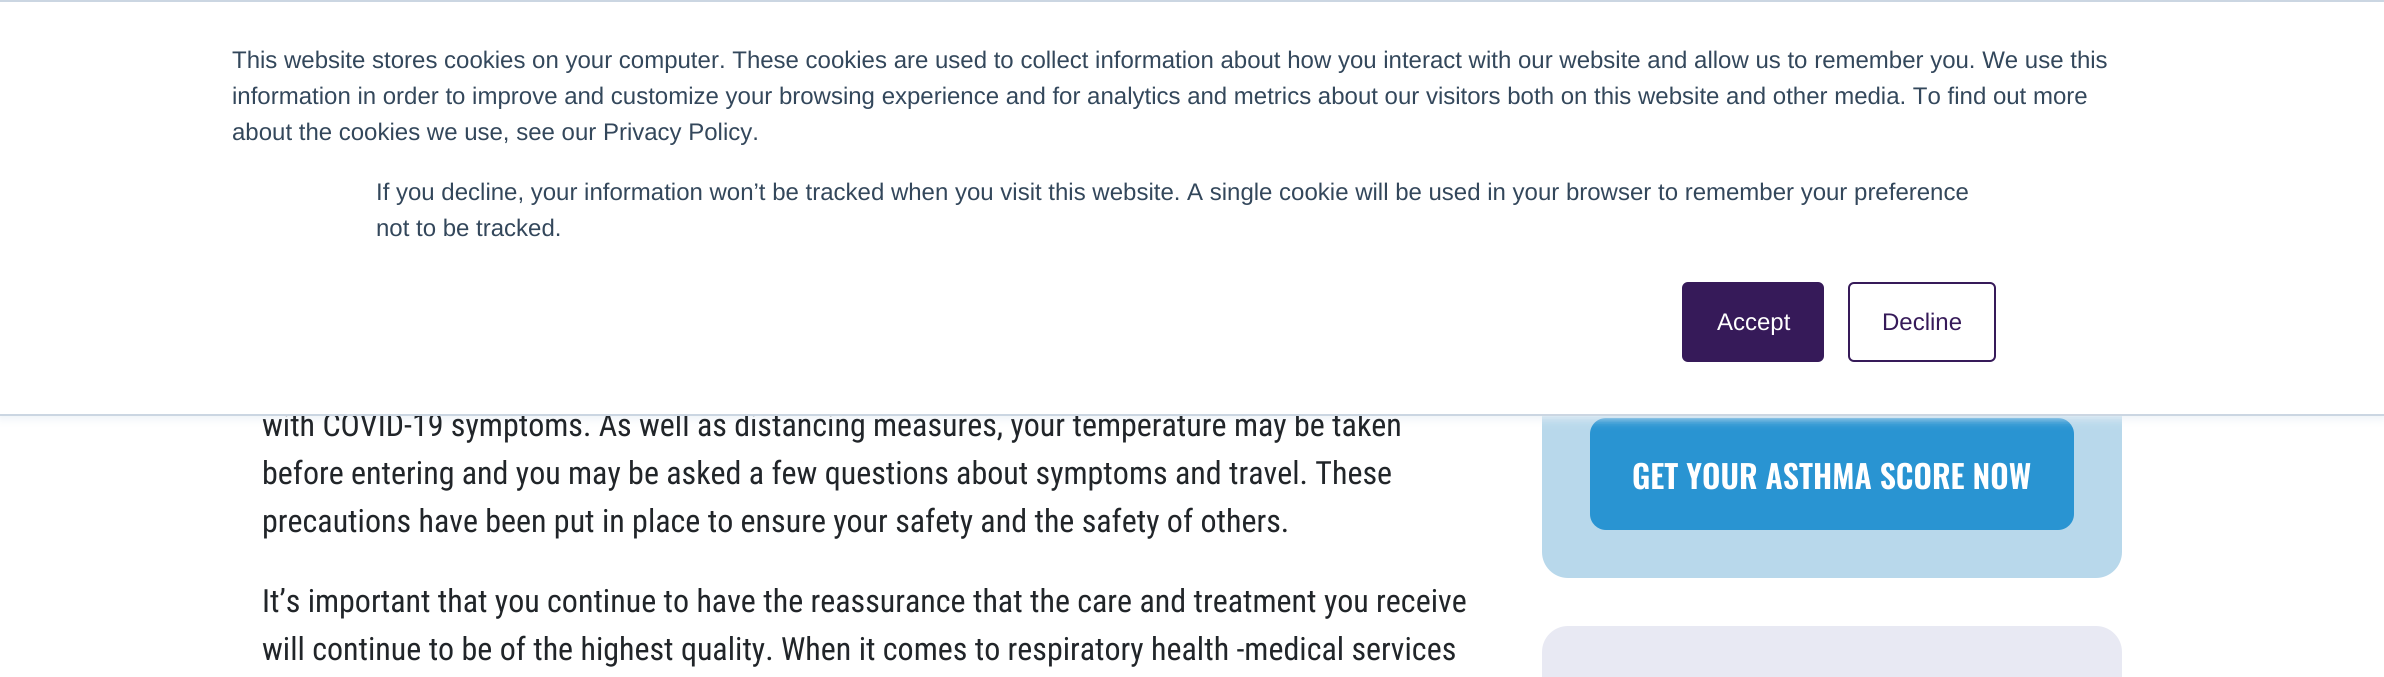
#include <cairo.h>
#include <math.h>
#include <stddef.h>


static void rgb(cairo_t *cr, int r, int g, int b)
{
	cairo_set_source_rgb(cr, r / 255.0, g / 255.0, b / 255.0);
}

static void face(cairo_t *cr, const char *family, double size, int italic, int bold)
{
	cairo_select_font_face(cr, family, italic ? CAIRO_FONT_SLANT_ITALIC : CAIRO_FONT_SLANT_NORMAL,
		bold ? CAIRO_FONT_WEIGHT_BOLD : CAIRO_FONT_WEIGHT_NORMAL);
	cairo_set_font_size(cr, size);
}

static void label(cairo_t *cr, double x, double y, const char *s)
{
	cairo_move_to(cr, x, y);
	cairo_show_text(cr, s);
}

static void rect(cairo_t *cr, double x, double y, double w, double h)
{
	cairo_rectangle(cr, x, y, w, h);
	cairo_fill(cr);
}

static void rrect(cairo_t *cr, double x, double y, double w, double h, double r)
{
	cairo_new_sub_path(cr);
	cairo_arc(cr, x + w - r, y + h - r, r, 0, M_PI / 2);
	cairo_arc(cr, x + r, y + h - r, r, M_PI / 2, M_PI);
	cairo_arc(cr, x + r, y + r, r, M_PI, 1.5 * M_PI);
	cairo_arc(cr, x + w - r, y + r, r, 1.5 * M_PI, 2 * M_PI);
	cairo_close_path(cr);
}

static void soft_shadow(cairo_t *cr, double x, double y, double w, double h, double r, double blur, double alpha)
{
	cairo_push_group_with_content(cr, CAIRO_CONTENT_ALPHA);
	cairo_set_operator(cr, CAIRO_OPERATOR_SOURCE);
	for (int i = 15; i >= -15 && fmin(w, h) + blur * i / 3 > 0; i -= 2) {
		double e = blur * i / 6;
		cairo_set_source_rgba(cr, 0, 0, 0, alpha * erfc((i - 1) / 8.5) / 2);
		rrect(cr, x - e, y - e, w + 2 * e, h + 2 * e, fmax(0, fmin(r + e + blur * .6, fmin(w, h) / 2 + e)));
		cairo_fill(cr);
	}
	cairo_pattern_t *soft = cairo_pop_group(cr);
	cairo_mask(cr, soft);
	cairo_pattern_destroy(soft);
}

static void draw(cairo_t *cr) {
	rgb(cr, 255, 255, 255);
	cairo_paint(cr);
	rgb(cr, 184, 216, 235);
	rrect(cr, 1542, 200, 580, 378, 26);
	cairo_fill(cr);
	rgb(cr, 41, 148, 210);
	rrect(cr, 1590, 418, 484, 112, 16);
	cairo_fill(cr);
	rgb(cr, 234, 240, 246);
	soft_shadow(cr, 0, 2, 2384, 416, 0, 5, 1);
	face(cr, "Roboto Condensed", 32, 0, 0);
	rgb(cr, 33, 37, 41);
	label(cr, 262, 436, "with COVID-19 symptoms. As well as distancing measures, your temperature may be taken");
	rgb(cr, 255, 255, 255);
	rect(cr, 0, 2, 2384, 412);
	rgb(cr, 203, 214, 226);
	rect(cr, 0, 0, 2384, 2);
	rect(cr, 0, 414, 2384, 2);
	face(cr, "Liberation Sans", 24, 0, 0);
	rgb(cr, 51, 71, 91);
	label(cr, 232, 68, "This website stores cookies on your computer. These cookies are used to collect information about how you interact with our website and allow us to remember you. We use this");
	label(cr, 232, 104, "information in order to improve and customize your browsing experience and for analytics and metrics about our visitors both on this website and other media. To find out more");
	label(cr, 232, 140, "about the cookies we use, see our Privacy Policy.");
	label(cr, 376, 200, "If you decline, your information won’t be tracked when you visit this website. A single cookie will be used in your browser to remember your preference");
	label(cr, 376, 236, "not to be tracked.");
	rgb(cr, 54, 26, 89);
	rrect(cr, 1683, 283, 140, 78, 5);
	cairo_fill_preserve(cr);
	cairo_stroke(cr);
	rgb(cr, 255, 255, 255);
	label(cr, 1717, 330, "Accept");
	rrect(cr, 1849, 283, 146, 78, 5);
	rgb(cr, 54, 26, 89);
	cairo_stroke(cr);
	label(cr, 1882, 330, "Decline");
	face(cr, "Roboto Condensed", 32, 0, 0);
	rgb(cr, 33, 37, 41);
	label(cr, 262, 484, "before entering and you may be asked a few questions about symptoms and travel. These");
	label(cr, 262, 532, "precautions have been put in place to ensure your safety and the safety of others.");
	label(cr, 262, 612, "It’s important that you continue to have the reassurance that the care and treatment you receive");
	label(cr, 262, 660, "will continue to be of the highest quality. When it comes to respiratory health -medical services");
	face(cr, "Oswald SemiBold", 32, 0, 0);
	rgb(cr, 255, 255, 255);
	label(cr, 1632, 489, "GET YOUR ASTHMA SCORE NOW");
	rgb(cr, 232, 233, 243);
	rrect(cr, 1542, 626, 580, 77, 26);
	cairo_fill(cr);
}

int main(void) {
	cairo_surface_t *surface = cairo_image_surface_create(CAIRO_FORMAT_RGB24, 2384, 677);
	cairo_t *cr = cairo_create(surface);
	cairo_font_options_t *options = cairo_font_options_create();
	cairo_font_options_set_hint_metrics(options, CAIRO_HINT_METRICS_OFF);
	cairo_font_options_set_hint_style(options, CAIRO_HINT_STYLE_NONE);
	cairo_set_font_options(cr, options);
	cairo_set_miter_limit(cr, 4);
	draw(cr);
	cairo_surface_write_to_png(surface, "render.png");
	cairo_font_options_destroy(options);
	cairo_destroy(cr);
	cairo_surface_destroy(surface);
	return 0;
}
